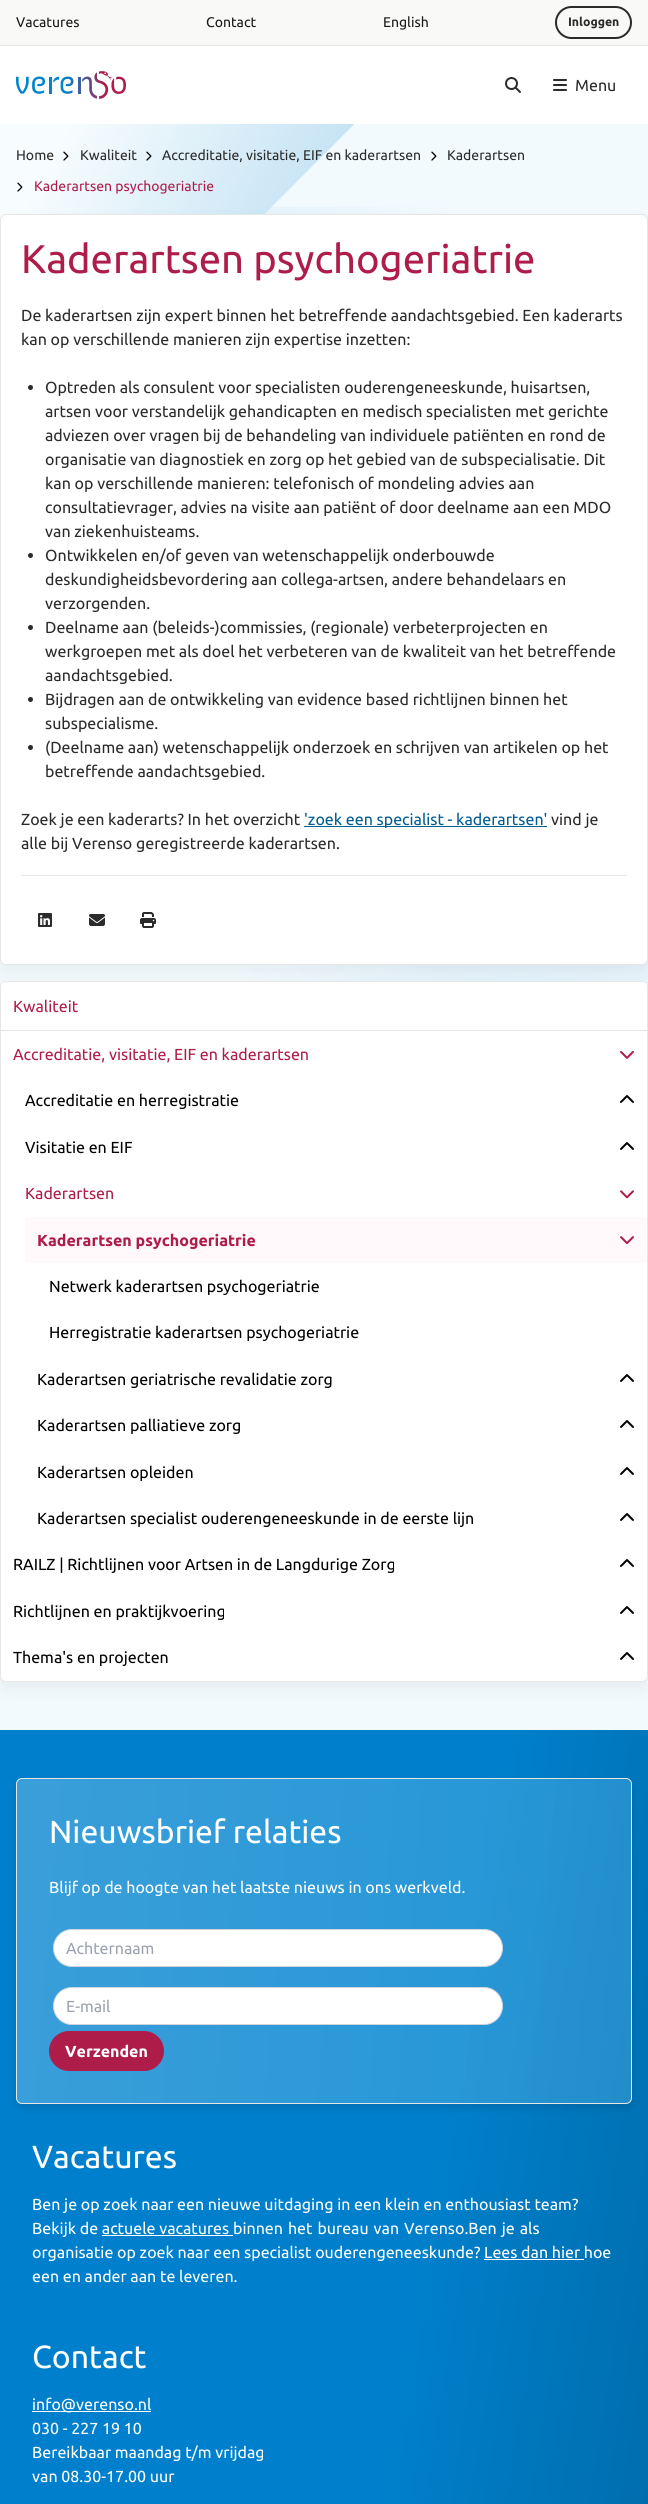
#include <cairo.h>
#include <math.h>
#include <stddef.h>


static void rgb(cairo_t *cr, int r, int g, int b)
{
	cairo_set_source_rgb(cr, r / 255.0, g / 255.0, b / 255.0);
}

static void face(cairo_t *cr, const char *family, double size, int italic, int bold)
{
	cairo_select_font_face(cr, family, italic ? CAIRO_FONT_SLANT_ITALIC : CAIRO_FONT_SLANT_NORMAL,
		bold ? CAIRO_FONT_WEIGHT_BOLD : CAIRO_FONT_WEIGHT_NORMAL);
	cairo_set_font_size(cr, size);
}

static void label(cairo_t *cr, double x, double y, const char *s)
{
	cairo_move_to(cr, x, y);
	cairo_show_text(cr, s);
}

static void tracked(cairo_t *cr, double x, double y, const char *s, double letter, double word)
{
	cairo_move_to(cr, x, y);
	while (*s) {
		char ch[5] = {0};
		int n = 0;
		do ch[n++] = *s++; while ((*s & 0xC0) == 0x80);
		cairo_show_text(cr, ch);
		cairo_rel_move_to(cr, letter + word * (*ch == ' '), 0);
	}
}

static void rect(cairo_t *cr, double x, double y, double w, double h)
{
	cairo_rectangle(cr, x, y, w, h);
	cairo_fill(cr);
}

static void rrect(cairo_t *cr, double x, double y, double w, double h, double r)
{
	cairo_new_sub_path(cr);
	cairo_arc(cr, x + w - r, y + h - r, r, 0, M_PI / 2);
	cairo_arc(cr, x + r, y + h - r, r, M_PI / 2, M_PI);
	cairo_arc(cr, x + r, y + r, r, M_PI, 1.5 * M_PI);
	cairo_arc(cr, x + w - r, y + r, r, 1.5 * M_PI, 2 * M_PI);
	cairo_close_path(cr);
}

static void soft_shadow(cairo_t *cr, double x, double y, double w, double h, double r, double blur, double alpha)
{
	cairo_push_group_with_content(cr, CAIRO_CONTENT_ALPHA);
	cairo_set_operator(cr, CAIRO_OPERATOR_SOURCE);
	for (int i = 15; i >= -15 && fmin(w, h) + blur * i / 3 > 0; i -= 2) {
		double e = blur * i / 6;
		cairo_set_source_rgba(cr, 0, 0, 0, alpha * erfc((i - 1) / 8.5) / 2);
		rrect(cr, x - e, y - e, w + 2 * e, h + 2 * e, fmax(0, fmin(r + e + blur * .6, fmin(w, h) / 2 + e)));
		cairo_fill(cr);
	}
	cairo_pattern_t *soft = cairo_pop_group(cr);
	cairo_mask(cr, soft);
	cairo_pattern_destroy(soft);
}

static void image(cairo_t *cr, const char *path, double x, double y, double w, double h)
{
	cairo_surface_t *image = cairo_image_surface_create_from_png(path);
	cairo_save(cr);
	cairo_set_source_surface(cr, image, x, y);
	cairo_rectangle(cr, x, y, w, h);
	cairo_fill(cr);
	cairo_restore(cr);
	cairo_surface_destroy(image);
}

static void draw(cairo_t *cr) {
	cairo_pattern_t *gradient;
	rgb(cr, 255, 255, 255);
	cairo_paint(cr);
	rgb(cr, 249, 249, 247);
	rect(cr, 0, 0, 648, 45);
	face(cr, "Ubuntu", 14, 0, 0);
	rgb(cr, 26, 26, 26);
	label(cr, 16, 27, "Vacatures");
	label(cr, 206, 27, "Contact");
	label(cr, 383, 27, "English");
	rrect(cr, 556, 7, 75, 31, 15.5);
	rgb(cr, 43, 43, 43);
	cairo_stroke(cr);
	face(cr, "Ubuntu", 12.25, 0, 1);
	label(cr, 568, 26, "Inloggen");
	rgb(cr, 230, 230, 230);
	rect(cr, 0, 45, 648, 1);
	image(cr, "image0.png", 16, 71, 110, 28);
	image(cr, "image1.png", 505, 77, 16, 16);
	image(cr, "image2.png", 553, 79, 14, 12);
	face(cr, "Ubuntu", 16, 0, 0);
	rgb(cr, 43, 43, 43);
	label(cr, 575, 91, "Menu");
	rgb(cr, 242, 250, 254);
	rect(cr, 0, 124, 648, 1606);
	image(cr, "image3.png", 0, 124, 648, 863);
	face(cr, "Ubuntu", 14, 0, 0);
	rgb(cr, 43, 43, 43);
	label(cr, 16, 160, "Home");
	image(cr, "image4.png", 63, 151, 6, 10);
	label(cr, 80, 160, "Kwaliteit");
	image(cr, "image5.png", 146, 151, 6, 10);
	label(cr, 162, 160, "Accreditatie, visitatie, EIF en kaderartsen");
	image(cr, "image6.png", 431, 151, 6, 10);
	label(cr, 447, 160, "Kaderartsen");
	image(cr, "image7.png", 17, 182, 6, 10);
	rgb(cr, 174, 29, 73);
	label(cr, 34, 191, "Kaderartsen psychogeriatrie");
	rgb(cr, 0, 0, 0);
	soft_shadow(cr, 0, 222, 648, 751, 6, 8, 0.05);
	rgb(cr, 255, 255, 255);
	rrect(cr, 0.5, 214.5, 647, 750, 5.5);
	cairo_fill_preserve(cr);
	rgb(cr, 230, 230, 230);
	cairo_set_line_width(cr, 1);
	cairo_stroke(cr);
	face(cr, "Ubuntu", 40, 0, 0);
	rgb(cr, 174, 29, 73);
	label(cr, 21, 273, "Kaderartsen psychogeriatrie");
	face(cr, "Ubuntu", 16, 0, 0);
	rgb(cr, 43, 43, 43);
	label(cr, 21, 321, "De kaderartsen zijn expert binnen het betreffende aandachtsgebied. Een kaderarts");
	label(cr, 21, 345, "kan op verschillende manieren zijn expertise inzetten:");
	cairo_new_path(cr);
	cairo_arc(cr, 30.5, 387.5, 2.5, 0, 2 * M_PI);
	cairo_fill(cr);
	label(cr, 45, 393, "Optreden als consulent voor specialisten ouderengeneeskunde, huisartsen,");
	label(cr, 45, 417, "artsen voor verstandelijk gehandicapten en medisch specialisten met gerichte");
	label(cr, 45, 441, "adviezen over vragen bij de behandeling van individuele patiënten en rond de");
	label(cr, 45, 465, "organisatie van diagnostiek en zorg op het gebied van de subspecialisatie. Dit");
	label(cr, 45, 489, "kan op verschillende manieren: telefonisch of mondeling advies aan");
	label(cr, 45, 513, "consultatievrager, advies na visite aan patiënt of door deelname aan een MDO");
	label(cr, 45, 537, "van ziekenhuisteams.");
	cairo_new_path(cr);
	cairo_arc(cr, 30.5, 555.5, 2.5, 0, 2 * M_PI);
	cairo_fill(cr);
	label(cr, 45, 561, "Ontwikkelen en/of geven van wetenschappelijk onderbouwde");
	label(cr, 45, 585, "deskundigheidsbevordering aan collega-artsen, andere behandelaars en");
	label(cr, 45, 609, "verzorgenden.");
	cairo_new_path(cr);
	cairo_arc(cr, 30.5, 627.5, 2.5, 0, 2 * M_PI);
	cairo_fill(cr);
	label(cr, 45, 633, "Deelname aan (beleids-)commissies, (regionale) verbeterprojecten en");
	label(cr, 45, 657, "werkgroepen met als doel het verbeteren van de kwaliteit van het betreffende");
	label(cr, 45, 681, "aandachtsgebied.");
	cairo_new_path(cr);
	cairo_arc(cr, 30.5, 699.5, 2.5, 0, 2 * M_PI);
	cairo_fill(cr);
	label(cr, 45, 705, "Bijdragen aan de ontwikkeling van evidence based richtlijnen binnen het");
	label(cr, 45, 729, "subspecialisme.");
	cairo_new_path(cr);
	cairo_arc(cr, 30.5, 747.5, 2.5, 0, 2 * M_PI);
	cairo_fill(cr);
	label(cr, 45, 753, "(Deelname aan) wetenschappelijk onderzoek en schrijven van artikelen op het");
	label(cr, 45, 777, "betreffende aandachtsgebied.");
	label(cr, 21, 825, "Zoek je een kaderarts? In het overzicht");
	rgb(cr, 0, 92, 145);
	rect(cr, 304, 826, 243, 1);
	label(cr, 304, 825, "'zoek een specialist - kaderartsen'");
	rgb(cr, 43, 43, 43);
	label(cr, 551, 825, "vind je");
	label(cr, 21, 849, "alle bij Verenso geregistreerde kaderartsen.");
	rgb(cr, 230, 230, 230);
	rect(cr, 21, 875, 606, 1);
	image(cr, "image8.png", 38, 913, 14, 14);
	image(cr, "image9.png", 89, 914, 16, 12);
	image(cr, "image10.png", 140, 912, 16, 16);
	rgb(cr, 0, 0, 0);
	soft_shadow(cr, 0, 989, 648, 701, 6, 8, 0.05);
	rgb(cr, 255, 255, 255);
	rrect(cr, 0.5, 981.5, 647, 700, 5.5);
	cairo_fill_preserve(cr);
	rgb(cr, 230, 230, 230);
	cairo_stroke(cr);
	rgb(cr, 255, 255, 255);
	cairo_new_path(cr);
	cairo_move_to(cr, 6, 982);
	cairo_line_to(cr, 642, 982);
	cairo_curve_to(cr, 645, 982, 647, 984, 647, 987);
	cairo_line_to(cr, 647, 1030);
	cairo_line_to(cr, 1, 1030);
	cairo_line_to(cr, 1, 987);
	cairo_curve_to(cr, 1, 984, 3, 982, 6, 982);
	cairo_close_path(cr);
	cairo_fill(cr);
	rgb(cr, 230, 230, 230);
	rect(cr, 1, 1030, 646, 1);
	rgb(cr, 174, 29, 73);
	label(cr, 13, 1012, "Kwaliteit");
	label(cr, 13, 1060, "Accreditatie, visitatie, EIF en kaderartsen");
	image(cr, "image11.png", 620, 1051, 14, 8);
	rgb(cr, 0, 0, 0);
	label(cr, 25, 1106, "Accreditatie en herregistratie");
	image(cr, "image12.png", 620, 1095, 14, 8);
	label(cr, 25, 1153, "Visitatie en EIF");
	image(cr, "image12.png", 620, 1142, 14, 8);
	rgb(cr, 174, 29, 73);
	label(cr, 25, 1199, "Kaderartsen");
	image(cr, "image13.png", 620, 1190, 14, 9);
	rgb(cr, 255, 249, 251);
	rect(cr, 25, 1217, 622, 46);
	face(cr, "Ubuntu", 16, 0, 1);
	rgb(cr, 174, 29, 73);
	label(cr, 37, 1246, "Kaderartsen psychogeriatrie");
	image(cr, "image14.png", 620, 1236, 14, 8);
	face(cr, "Ubuntu", 16, 0, 0);
	rgb(cr, 0, 0, 0);
	label(cr, 49, 1292, "Netwerk kaderartsen psychogeriatrie");
	label(cr, 49, 1338, "Herregistratie kaderartsen psychogeriatrie");
	label(cr, 37, 1385, "Kaderartsen geriatrische revalidatie zorg");
	image(cr, "image12.png", 620, 1374, 14, 8);
	label(cr, 37, 1431, "Kaderartsen palliatieve zorg");
	image(cr, "image12.png", 620, 1420, 14, 8);
	label(cr, 37, 1478, "Kaderartsen opleiden");
	image(cr, "image12.png", 620, 1467, 14, 8);
	label(cr, 37, 1524, "Kaderartsen specialist ouderengeneeskunde in de eerste lijn");
	image(cr, "image12.png", 620, 1513, 14, 8);
	label(cr, 13, 1570, "RAILZ | Richtlijnen voor Artsen in de Langdurige Zorg");
	image(cr, "image12.png", 620, 1559, 14, 8);
	label(cr, 13, 1617, "Richtlijnen en praktijkvoering");
	image(cr, "image12.png", 620, 1606, 14, 8);
	label(cr, 13, 1663, "Thema's en projecten");
	image(cr, "image12.png", 620, 1652, 14, 8);
	gradient = cairo_pattern_create_linear(-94, 2303, 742, 2441);
	cairo_pattern_add_color_stop_rgba(gradient, 0.58, 0, 0.502, 0.8, 1);
	cairo_pattern_add_color_stop_rgba(gradient, 1, 0, 0.408, 0.647, 1);
	cairo_set_source(cr, gradient);
	cairo_pattern_destroy(gradient);
	rect(cr, 0, 1730, 648, 774);
	cairo_save(cr);
	cairo_set_fill_rule(cr, CAIRO_FILL_RULE_EVEN_ODD);
	cairo_new_path(cr);
	cairo_move_to(cr, 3, 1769);
	cairo_line_to(cr, 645, 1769);
	cairo_line_to(cr, 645, 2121);
	cairo_line_to(cr, 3, 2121);
	cairo_close_path(cr);
	cairo_move_to(cr, 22, 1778);
	cairo_line_to(cr, 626, 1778);
	cairo_curve_to(cr, 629.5, 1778, 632, 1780.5, 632, 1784);
	cairo_line_to(cr, 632, 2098);
	cairo_curve_to(cr, 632, 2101.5, 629.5, 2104, 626, 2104);
	cairo_line_to(cr, 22, 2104);
	cairo_curve_to(cr, 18.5, 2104, 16, 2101.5, 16, 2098);
	cairo_line_to(cr, 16, 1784);
	cairo_curve_to(cr, 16, 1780.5, 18.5, 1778, 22, 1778);
	cairo_close_path(cr);
	cairo_clip(cr);
	rgb(cr, 0, 20, 32);
	soft_shadow(cr, 16, 1782, 616, 326, 6, 4, 0.15);
	cairo_restore(cr);
	cairo_save(cr);
	rrect(cr, 16, 1778, 616, 326, 6);
	cairo_clip(cr);
	gradient = cairo_pattern_create_linear(6, 1915, 642, 1967);
	cairo_pattern_add_color_stop_rgba(gradient, 0, 0.761, 0.91, 0.98, 0.3);
	cairo_pattern_add_color_stop_rgba(gradient, 1, 0.435, 0.784, 0.949, 0.3);
	cairo_set_source(cr, gradient);
	cairo_pattern_destroy(gradient);
	rect(cr, 17, 1779, 614, 324);
	cairo_restore(cr);
	rrect(cr, 16.5, 1778.5, 615, 325, 5.5);
	rgb(cr, 230, 230, 230);
	cairo_stroke(cr);
	face(cr, "Ubuntu", 32, 0, 0);
	rgb(cr, 255, 255, 255);
	label(cr, 49, 1843, "Nieuwsbrief relaties");
	face(cr, "Ubuntu", 16, 0, 0);
	label(cr, 49, 1893, "Blijf op de hoogte van het laatste nieuws in ons werkveld.");
	rrect(cr, 53.5, 1929.5, 449, 37, 18.5);
	cairo_fill_preserve(cr);
	rgb(cr, 209, 213, 219);
	cairo_stroke(cr);
	rgb(cr, 156, 163, 175);
	label(cr, 66, 1954, "Achternaam");
	rgb(cr, 255, 255, 255);
	rrect(cr, 53.5, 1987.5, 449, 37, 18.5);
	cairo_fill_preserve(cr);
	rgb(cr, 209, 213, 219);
	cairo_stroke(cr);
	rgb(cr, 156, 163, 175);
	label(cr, 66, 2012, "E-mail");
	rgb(cr, 174, 29, 73);
	rrect(cr, 49, 2031, 115, 40, 20);
	cairo_fill(cr);
	face(cr, "Ubuntu", 16, 0, 1);
	rgb(cr, 255, 255, 255);
	label(cr, 65, 2057, "Verzenden");
	face(cr, "Ubuntu", 32, 0, 0);
	label(cr, 32, 2168, "Vacatures");
	face(cr, "Ubuntu", 16, 0, 0);
	label(cr, 32, 2210, "Ben je op zoek naar een nieuwe uitdaging in een klein en enthousiast team?");
	label(cr, 32, 2234, "Bekijk de actuele vacatures");
	tracked(cr, 233, 2234, "binnen het bureau van Verenso.Ben je als", 0, 1.25);
	rect(cr, 102, 2235, 131, 1);
	label(cr, 32, 2258, "organisatie op zoek naar een specialist ouderengeneeskunde? Lees dan hier hoe");
	rect(cr, 484, 2259, 100, 1);
	label(cr, 32, 2282, "een en ander aan te leveren.");
	face(cr, "Ubuntu", 32, 0, 0);
	label(cr, 32, 2368, "Contact");
	rect(cr, 32, 2411, 119, 1);
	face(cr, "Ubuntu", 16, 0, 0);
	label(cr, 32, 2410, "info@verenso.nl");
	label(cr, 32, 2434, "030 - 227 19 10");
	label(cr, 32, 2458, "Bereikbaar maandag t/m vrijdag");
	label(cr, 32, 2482, "van 08.30-17.00 uur");
}

int main(void) {
	cairo_surface_t *surface = cairo_image_surface_create(CAIRO_FORMAT_RGB24, 648, 2504);
	cairo_t *cr = cairo_create(surface);
	cairo_font_options_t *options = cairo_font_options_create();
	cairo_font_options_set_hint_metrics(options, CAIRO_HINT_METRICS_OFF);
	cairo_font_options_set_hint_style(options, CAIRO_HINT_STYLE_NONE);
	cairo_set_font_options(cr, options);
	cairo_set_miter_limit(cr, 4);
	draw(cr);
	cairo_surface_write_to_png(surface, "render.png");
	cairo_font_options_destroy(options);
	cairo_destroy(cr);
	cairo_surface_destroy(surface);
	return 0;
}
